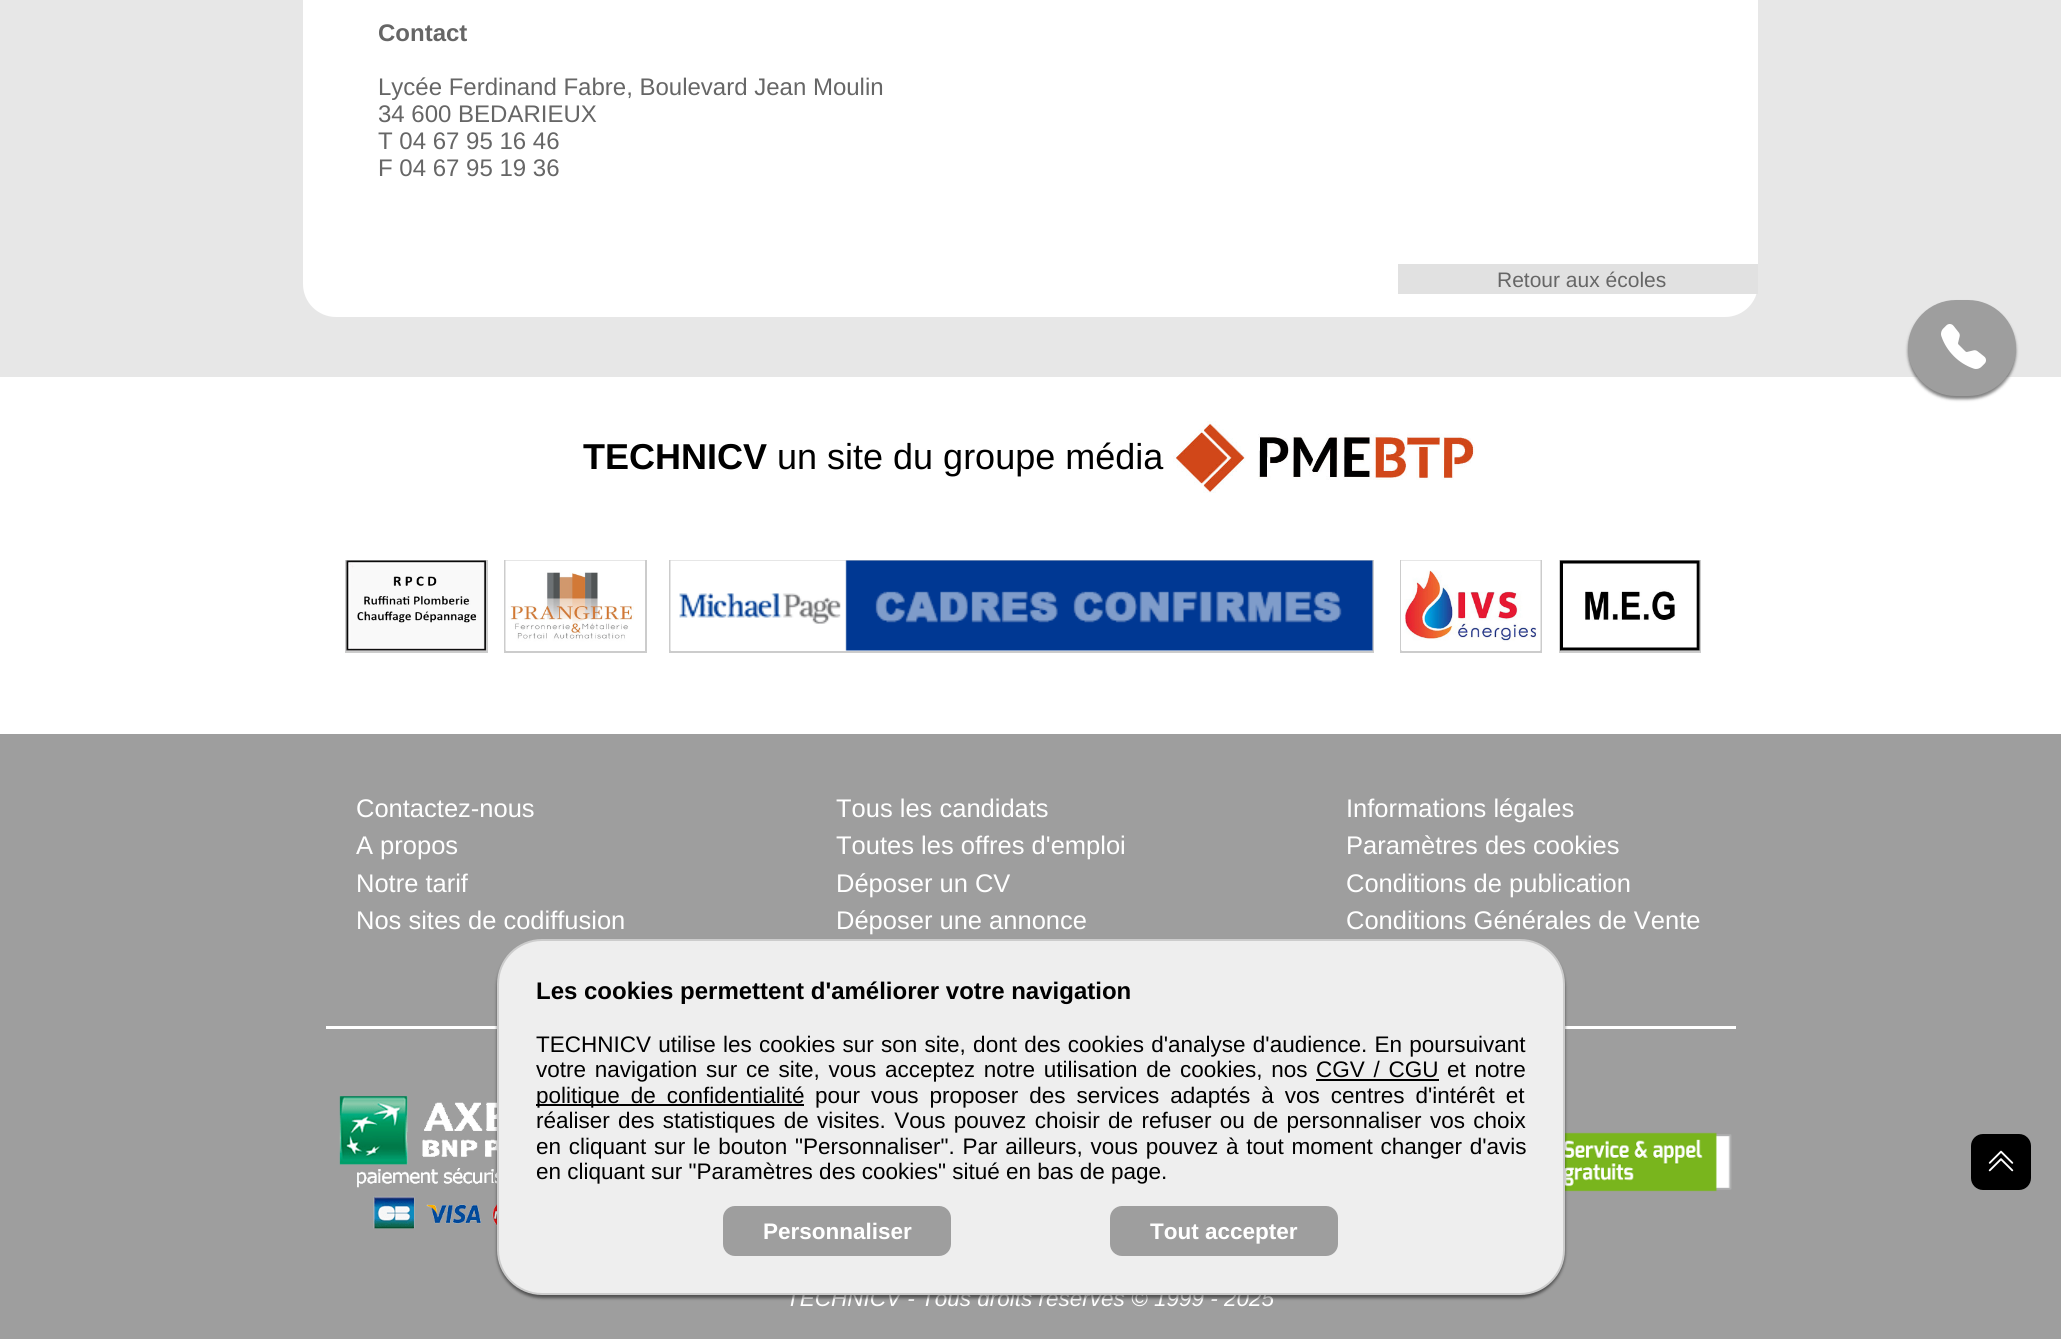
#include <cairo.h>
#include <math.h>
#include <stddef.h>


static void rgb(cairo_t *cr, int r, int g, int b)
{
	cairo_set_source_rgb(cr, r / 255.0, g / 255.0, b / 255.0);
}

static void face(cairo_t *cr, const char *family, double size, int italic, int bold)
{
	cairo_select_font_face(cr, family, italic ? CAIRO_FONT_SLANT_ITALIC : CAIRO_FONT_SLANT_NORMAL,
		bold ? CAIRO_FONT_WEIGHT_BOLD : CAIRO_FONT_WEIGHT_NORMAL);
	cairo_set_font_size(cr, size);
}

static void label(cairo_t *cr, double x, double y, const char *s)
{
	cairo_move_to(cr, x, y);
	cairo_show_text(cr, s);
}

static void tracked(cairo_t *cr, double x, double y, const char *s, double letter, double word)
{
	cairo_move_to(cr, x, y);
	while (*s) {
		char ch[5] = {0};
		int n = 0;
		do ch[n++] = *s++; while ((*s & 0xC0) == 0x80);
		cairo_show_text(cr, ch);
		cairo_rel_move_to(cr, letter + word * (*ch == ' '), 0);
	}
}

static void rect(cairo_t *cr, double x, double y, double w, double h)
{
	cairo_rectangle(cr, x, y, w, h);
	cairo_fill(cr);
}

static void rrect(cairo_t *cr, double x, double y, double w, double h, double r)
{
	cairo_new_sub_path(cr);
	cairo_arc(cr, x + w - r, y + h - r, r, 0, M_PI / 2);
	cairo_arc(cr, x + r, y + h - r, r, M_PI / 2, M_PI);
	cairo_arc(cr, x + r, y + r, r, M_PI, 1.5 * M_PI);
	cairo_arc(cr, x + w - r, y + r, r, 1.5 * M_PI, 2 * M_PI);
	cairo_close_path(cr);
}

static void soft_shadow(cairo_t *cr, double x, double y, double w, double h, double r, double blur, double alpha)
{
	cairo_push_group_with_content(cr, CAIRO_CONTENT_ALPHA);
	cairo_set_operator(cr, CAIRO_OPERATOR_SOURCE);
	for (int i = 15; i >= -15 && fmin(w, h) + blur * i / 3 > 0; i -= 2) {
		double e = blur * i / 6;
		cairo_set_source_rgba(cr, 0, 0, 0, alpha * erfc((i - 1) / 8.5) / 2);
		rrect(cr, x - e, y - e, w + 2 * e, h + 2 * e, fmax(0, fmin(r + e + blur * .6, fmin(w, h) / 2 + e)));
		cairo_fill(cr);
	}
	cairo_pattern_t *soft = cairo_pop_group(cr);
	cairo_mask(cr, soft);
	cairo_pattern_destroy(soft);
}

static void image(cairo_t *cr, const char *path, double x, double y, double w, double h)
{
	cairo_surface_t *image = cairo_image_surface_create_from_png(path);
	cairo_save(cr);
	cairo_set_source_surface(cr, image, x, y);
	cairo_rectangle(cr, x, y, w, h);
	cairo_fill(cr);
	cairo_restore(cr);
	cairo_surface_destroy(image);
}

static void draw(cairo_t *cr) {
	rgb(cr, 255, 255, 255);
	cairo_paint(cr);
	rgb(cr, 231, 231, 231);
	rect(cr, 0, 0, 2061, 377);
	rgb(cr, 255, 255, 255);
	rrect(cr, 303, -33, 1455, 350, 33);
	cairo_fill(cr);
	face(cr, "Liberation Sans", 24, 0, 1);
	rgb(cr, 102, 102, 102);
	label(cr, 378, 41, "Contact");
	face(cr, "Liberation Sans", 24, 0, 0);
	label(cr, 378, 95, "Lycée Ferdinand Fabre, Boulevard Jean Moulin");
	label(cr, 378, 122, "34 600 BEDARIEUX");
	label(cr, 378, 149, "T 04 67 95 16 46");
	label(cr, 378, 176, "F 04 67 95 19 36");
	rgb(cr, 225, 225, 225);
	rect(cr, 1398, 264, 360, 30);
	face(cr, "Liberation Sans", 21, 0, 0);
	rgb(cr, 102, 102, 102);
	label(cr, 1497, 287, "Retour aux écoles");
	rgb(cr, 0, 0, 0);
	soft_shadow(cr, 1908, 303, 108, 96, 48, 1.5, 0.5);
	rgb(cr, 158, 158, 158);
	rrect(cr, 1908, 300, 108, 96, 48);
	cairo_fill(cr);
	image(cr, "image0.png", 1941, 324, 45, 45);
	face(cr, "Liberation Sans", 36, 0, 1);
	rgb(cr, 0, 0, 0);
	label(cr, 583, 469, "TECHNICV");
	face(cr, "Liberation Sans", 36, 0, 0);
	label(cr, 777, 469, "un site du groupe média");
	image(cr, "image1.png", 1173, 421, 302, 72);
	cairo_rectangle(cr, 346, 561, 141, 91);
	rgb(cr, 204, 204, 204);
	cairo_stroke(cr);
	image(cr, "image2.png", 346, 560, 140, 91);
	cairo_rectangle(cr, 505, 561, 141, 91);
	cairo_stroke(cr);
	image(cr, "image3.png", 505, 560, 140, 91);
	cairo_rectangle(cr, 670, 561, 703, 91);
	cairo_stroke(cr);
	image(cr, "image4.png", 670, 560, 703, 91);
	cairo_rectangle(cr, 1401, 561, 140, 91);
	cairo_stroke(cr);
	image(cr, "image5.png", 1401, 560, 140, 91);
	cairo_rectangle(cr, 1560, 561, 140, 91);
	cairo_stroke(cr);
	image(cr, "image6.png", 1560, 560, 140, 91);
	rgb(cr, 158, 158, 158);
	rect(cr, 0, 734, 2061, 605);
	face(cr, "Liberation Sans", 25.5, 0, 0);
	rgb(cr, 255, 255, 255);
	label(cr, 356, 817, "Contactez-nous");
	label(cr, 356, 854, "A propos");
	label(cr, 356, 892, "Notre tarif");
	label(cr, 356, 929, "Nos sites de codiffusion");
	label(cr, 836, 817, "Tous les candidats");
	label(cr, 836, 854, "Toutes les offres d'emploi");
	label(cr, 836, 892, "Déposer un CV");
	label(cr, 836, 929, "Déposer une annonce");
	label(cr, 1346, 817, "Informations légales");
	label(cr, 1346, 854, "Paramètres des cookies");
	label(cr, 1346, 892, "Conditions de publication");
	label(cr, 1346, 929, "Conditions Générales de Vente");
	rect(cr, 326, 1026, 1410, 3);
	image(cr, "image7.png", 339, 1096, 158, 133);
	image(cr, "image8.png", 1565, 1132, 167, 60);
	face(cr, "Liberation Sans", 22.5, 1, 0);
	label(cr, 786, 1306, "TECHNICV - Tous droits réservés © 1999 - 2025");
	rgb(cr, 0, 0, 0);
	soft_shadow(cr, 497, 942, 1068, 356, 45, 1.5, 0.5);
	rgb(cr, 238, 238, 238);
	rrect(cr, 498, 940, 1066, 354, 44);
	cairo_fill_preserve(cr);
	rgb(cr, 204, 204, 204);
	cairo_stroke(cr);
	face(cr, "Liberation Sans", 24, 0, 1);
	rgb(cr, 0, 0, 0);
	label(cr, 536, 999, "Les cookies permettent d'améliorer votre navigation");
	face(cr, "Liberation Sans", 22.5, 0, 0);
	tracked(cr, 536, 1052, "TECHNICV utilise les cookies sur son site, dont des cookies d'analyse d'audience. En poursuivant", 0, 1);
	tracked(cr, 536, 1077, "votre navigation sur ce site, vous acceptez notre utilisation de cookies, nos", 0, 2.5);
	tracked(cr, 1316, 1077, "CGV / CGU", 0, 2.5);
	rect(cr, 1316, 1079, 123, 2);
	tracked(cr, 1447, 1077, "et notre", 0, 2.5);
	rect(cr, 536, 1104, 268, 2);
	tracked(cr, 536, 1103, "politique de confidentialité", 0, 4.75);
	tracked(cr, 815, 1103, "pour vous proposer des services adaptés à vos centres d'intérêt et", 0, 4.75);
	tracked(cr, 536, 1128, "réaliser des statistiques de visites. Vous pouvez choisir de refuser ou de personnaliser vos choix", 0, 2.1);
	tracked(cr, 536, 1154, "en cliquant sur le bouton \"Personnaliser\". Par ailleurs, vous pouvez à tout moment changer d'avis", 0, 1.5);
	label(cr, 536, 1179, "en cliquant sur \"Paramètres des cookies\" situé en bas de page.");
	rgb(cr, 158, 158, 158);
	rrect(cr, 724, 1207, 226, 48, 11);
	cairo_fill_preserve(cr);
	cairo_stroke(cr);
	face(cr, "Liberation Sans", 22.5, 0, 1);
	rgb(cr, 255, 255, 255);
	label(cr, 763, 1239, "Personnaliser");
	rgb(cr, 158, 158, 158);
	rrect(cr, 1111, 1207, 226, 48, 11);
	cairo_fill_preserve(cr);
	cairo_stroke(cr);
	rgb(cr, 255, 255, 255);
	label(cr, 1150, 1239, "Tout accepter");
	rgb(cr, 0, 0, 0);
	rrect(cr, 1971, 1134, 60, 56, 12);
	cairo_fill(cr);
	image(cr, "image9.png", 1988, 1150, 26, 22);
}

int main(void) {
	cairo_surface_t *surface = cairo_image_surface_create(CAIRO_FORMAT_RGB24, 2061, 1339);
	cairo_t *cr = cairo_create(surface);
	cairo_font_options_t *options = cairo_font_options_create();
	cairo_font_options_set_hint_metrics(options, CAIRO_HINT_METRICS_OFF);
	cairo_font_options_set_hint_style(options, CAIRO_HINT_STYLE_NONE);
	cairo_set_font_options(cr, options);
	cairo_set_miter_limit(cr, 4);
	draw(cr);
	cairo_surface_write_to_png(surface, "render.png");
	cairo_font_options_destroy(options);
	cairo_destroy(cr);
	cairo_surface_destroy(surface);
	return 0;
}
